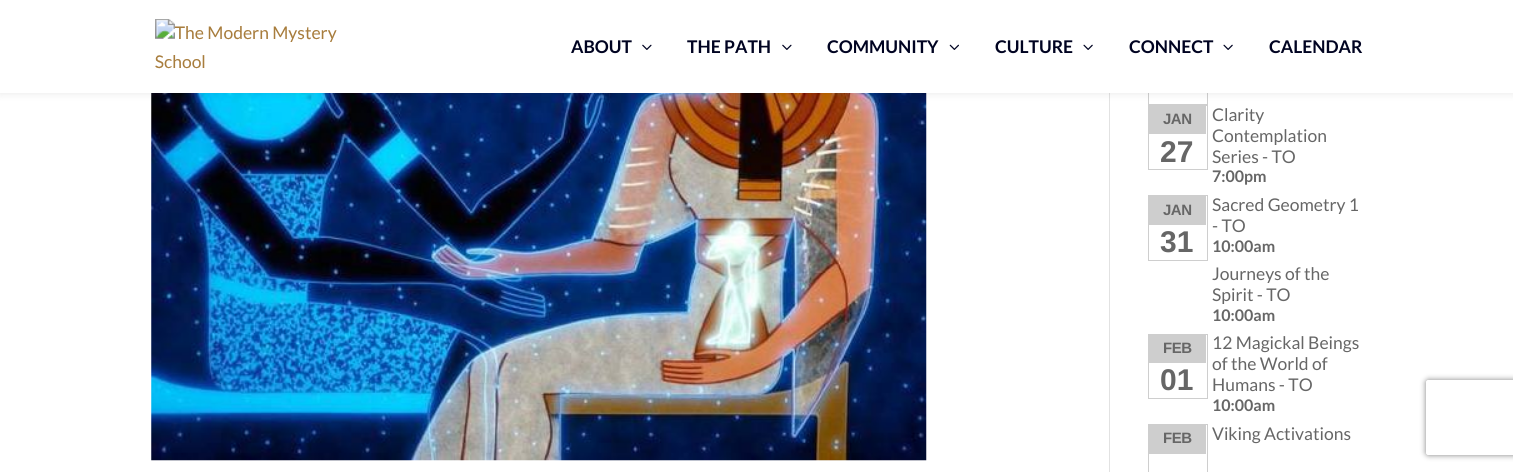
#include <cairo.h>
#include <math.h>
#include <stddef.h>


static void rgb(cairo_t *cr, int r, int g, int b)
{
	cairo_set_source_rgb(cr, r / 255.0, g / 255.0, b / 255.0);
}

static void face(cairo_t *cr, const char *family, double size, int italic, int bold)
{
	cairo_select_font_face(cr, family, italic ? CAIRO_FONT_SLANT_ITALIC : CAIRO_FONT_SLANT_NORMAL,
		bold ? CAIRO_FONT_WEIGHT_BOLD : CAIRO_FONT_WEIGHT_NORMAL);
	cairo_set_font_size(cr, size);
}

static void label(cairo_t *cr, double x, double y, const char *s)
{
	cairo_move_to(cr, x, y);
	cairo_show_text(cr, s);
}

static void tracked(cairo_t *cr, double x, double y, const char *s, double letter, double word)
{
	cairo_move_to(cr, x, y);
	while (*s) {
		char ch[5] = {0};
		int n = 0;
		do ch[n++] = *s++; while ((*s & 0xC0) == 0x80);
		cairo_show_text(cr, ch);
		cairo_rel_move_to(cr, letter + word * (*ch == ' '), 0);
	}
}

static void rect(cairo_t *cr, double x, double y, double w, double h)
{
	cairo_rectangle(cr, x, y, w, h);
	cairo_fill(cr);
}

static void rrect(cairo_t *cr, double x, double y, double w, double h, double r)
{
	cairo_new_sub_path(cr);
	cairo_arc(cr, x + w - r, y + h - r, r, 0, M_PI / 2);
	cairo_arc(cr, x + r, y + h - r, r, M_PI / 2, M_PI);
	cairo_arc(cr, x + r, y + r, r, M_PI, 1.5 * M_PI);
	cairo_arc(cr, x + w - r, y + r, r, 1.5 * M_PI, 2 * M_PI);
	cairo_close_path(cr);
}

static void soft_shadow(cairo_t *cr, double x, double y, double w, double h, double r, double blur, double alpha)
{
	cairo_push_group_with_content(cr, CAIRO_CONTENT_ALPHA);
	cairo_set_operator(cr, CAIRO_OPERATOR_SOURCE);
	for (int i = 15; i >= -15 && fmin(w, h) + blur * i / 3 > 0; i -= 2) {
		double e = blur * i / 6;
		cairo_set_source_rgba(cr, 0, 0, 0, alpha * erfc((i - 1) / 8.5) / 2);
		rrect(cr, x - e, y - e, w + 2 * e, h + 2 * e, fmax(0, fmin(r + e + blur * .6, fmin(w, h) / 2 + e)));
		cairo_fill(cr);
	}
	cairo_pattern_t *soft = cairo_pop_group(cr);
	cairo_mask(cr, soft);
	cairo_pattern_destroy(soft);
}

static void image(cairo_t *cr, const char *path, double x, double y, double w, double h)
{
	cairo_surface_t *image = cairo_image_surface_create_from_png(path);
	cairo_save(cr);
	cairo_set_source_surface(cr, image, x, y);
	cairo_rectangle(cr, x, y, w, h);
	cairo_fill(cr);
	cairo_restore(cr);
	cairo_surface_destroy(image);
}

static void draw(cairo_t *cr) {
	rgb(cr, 255, 255, 255);
	cairo_paint(cr);
	rgb(cr, 226, 226, 226);
	rect(cr, 1109, 93, 1, 379);
	image(cr, "image4.png", 151, 93, 776, 368);
	cairo_rectangle(cr, 1148.5, 39.5, 59, 65);
	rgb(cr, 206, 206, 206);
	cairo_set_line_width(cr, 1);
	cairo_stroke(cr);
	cairo_rectangle(cr, 1148.5, 105.5, 59, 64);
	cairo_stroke(cr);
	rect(cr, 1149, 106, 57, 28);
	rgb(cr, 0, 0, 0);
	soft_shadow(cr, 0, 0, 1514, 93, 0, 4.5, 0.1);
	rgb(cr, 255, 255, 255);
	rect(cr, 0, 0, 1513, 93);
	image(cr, "image0.png", 155, 19, 182, 50);
	face(cr, "Lato", 17.5, 0, 1);
	rgb(cr, 0, 3, 33);
	label(cr, 571, 53, "ABOUT");
	image(cr, "image1.png", 642, 44, 10, 6);
	label(cr, 687, 53, "THE PATH");
	image(cr, "image1.png", 782, 44, 10, 6);
	label(cr, 827, 53, "COMMUNITY");
	image(cr, "image2.png", 949, 44, 10, 6);
	label(cr, 995, 53, "CULTURE");
	image(cr, "image3.png", 1083, 44, 10, 6);
	label(cr, 1129, 53, "CONNECT");
	image(cr, "image3.png", 1223, 44, 10, 6);
	label(cr, 1269, 53, "CALENDAR");
	face(cr, "Liberation Sans", 15, 0, 1);
	rgb(cr, 102, 102, 102);
	tracked(cr, 1163, 124, "JAN", -0.5, 0);
	face(cr, "Liberation Sans", 30, 0, 1);
	label(cr, 1160, 162, "27");
	face(cr, "Lato", 17.5, 0, 0);
	label(cr, 1212, 121, "Clarity");
	label(cr, 1212, 142, "Contemplation");
	label(cr, 1212, 163, "Series - TO");
	face(cr, "Lato", 16, 0, 1);
	label(cr, 1212, 182, "7:00pm");
	cairo_rectangle(cr, 1148.5, 195.5, 59, 65);
	rgb(cr, 206, 206, 206);
	cairo_stroke(cr);
	rect(cr, 1149, 196, 57, 29);
	face(cr, "Liberation Sans", 15, 0, 1);
	rgb(cr, 102, 102, 102);
	tracked(cr, 1163, 215, "JAN", -0.5, 0);
	face(cr, "Liberation Sans", 30, 0, 1);
	label(cr, 1160, 252, "31");
	face(cr, "Lato", 17.5, 0, 0);
	label(cr, 1212, 211, "Sacred Geometry 1");
	label(cr, 1212, 232, "- TO");
	face(cr, "Lato", 16, 0, 1);
	label(cr, 1212, 252, "10:00am");
	face(cr, "Lato", 17.5, 0, 0);
	label(cr, 1212, 280, "Journeys of the");
	label(cr, 1212, 301, "Spirit - TO");
	face(cr, "Lato", 16, 0, 1);
	label(cr, 1212, 321, "10:00am");
	cairo_rectangle(cr, 1148.5, 334.5, 59, 64);
	rgb(cr, 206, 206, 206);
	cairo_stroke(cr);
	rect(cr, 1149, 335, 57, 28);
	face(cr, "Liberation Sans", 15, 0, 1);
	rgb(cr, 102, 102, 102);
	tracked(cr, 1163, 353, "FEB", -0.5, 0);
	face(cr, "Liberation Sans", 30, 0, 1);
	label(cr, 1160, 390, "01");
	face(cr, "Lato", 17.5, 0, 0);
	label(cr, 1212, 349, "12 Magickal Beings");
	label(cr, 1212, 370, "of the World of");
	label(cr, 1212, 391, "Humans - TO");
	face(cr, "Lato", 16, 0, 1);
	label(cr, 1212, 411, "10:00am");
	cairo_rectangle(cr, 1148.5, 424.5, 59, 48);
	rgb(cr, 206, 206, 206);
	cairo_stroke(cr);
	rect(cr, 1149, 425, 57, 29);
	face(cr, "Liberation Sans", 15, 0, 1);
	rgb(cr, 102, 102, 102);
	tracked(cr, 1163, 443, "FEB", -0.5, 0);
	face(cr, "Lato", 17.5, 0, 0);
	label(cr, 1212, 440, "Viking Activations");
	cairo_save(cr);
	cairo_set_fill_rule(cr, CAIRO_FILL_RULE_EVEN_ODD);
	cairo_new_path(cr);
	cairo_move_to(cr, 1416, 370);
	cairo_line_to(cr, 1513, 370);
	cairo_line_to(cr, 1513, 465);
	cairo_line_to(cr, 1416, 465);
	cairo_close_path(cr);
	cairo_move_to(cr, 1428.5, 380);
	cairo_line_to(cr, 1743.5, 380);
	cairo_curve_to(cr, 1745, 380, 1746, 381, 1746, 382.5);
	cairo_line_to(cr, 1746, 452.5);
	cairo_curve_to(cr, 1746, 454, 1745, 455, 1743.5, 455);
	cairo_line_to(cr, 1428.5, 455);
	cairo_curve_to(cr, 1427, 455, 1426, 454, 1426, 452.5);
	cairo_line_to(cr, 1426, 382.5);
	cairo_curve_to(cr, 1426, 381, 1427, 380, 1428.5, 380);
	cairo_close_path(cr);
	cairo_clip(cr);
	rgb(cr, 128, 128, 128);
	soft_shadow(cr, 1426, 380, 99, 75, 2.5, 3, 1);
	cairo_restore(cr);
}

int main(void) {
	cairo_surface_t *surface = cairo_image_surface_create(CAIRO_FORMAT_RGB24, 1513, 472);
	cairo_t *cr = cairo_create(surface);
	cairo_font_options_t *options = cairo_font_options_create();
	cairo_font_options_set_hint_metrics(options, CAIRO_HINT_METRICS_OFF);
	cairo_font_options_set_hint_style(options, CAIRO_HINT_STYLE_NONE);
	cairo_set_font_options(cr, options);
	cairo_set_miter_limit(cr, 4);
	draw(cr);
	cairo_surface_write_to_png(surface, "render.png");
	cairo_font_options_destroy(options);
	cairo_destroy(cr);
	cairo_surface_destroy(surface);
	return 0;
}
